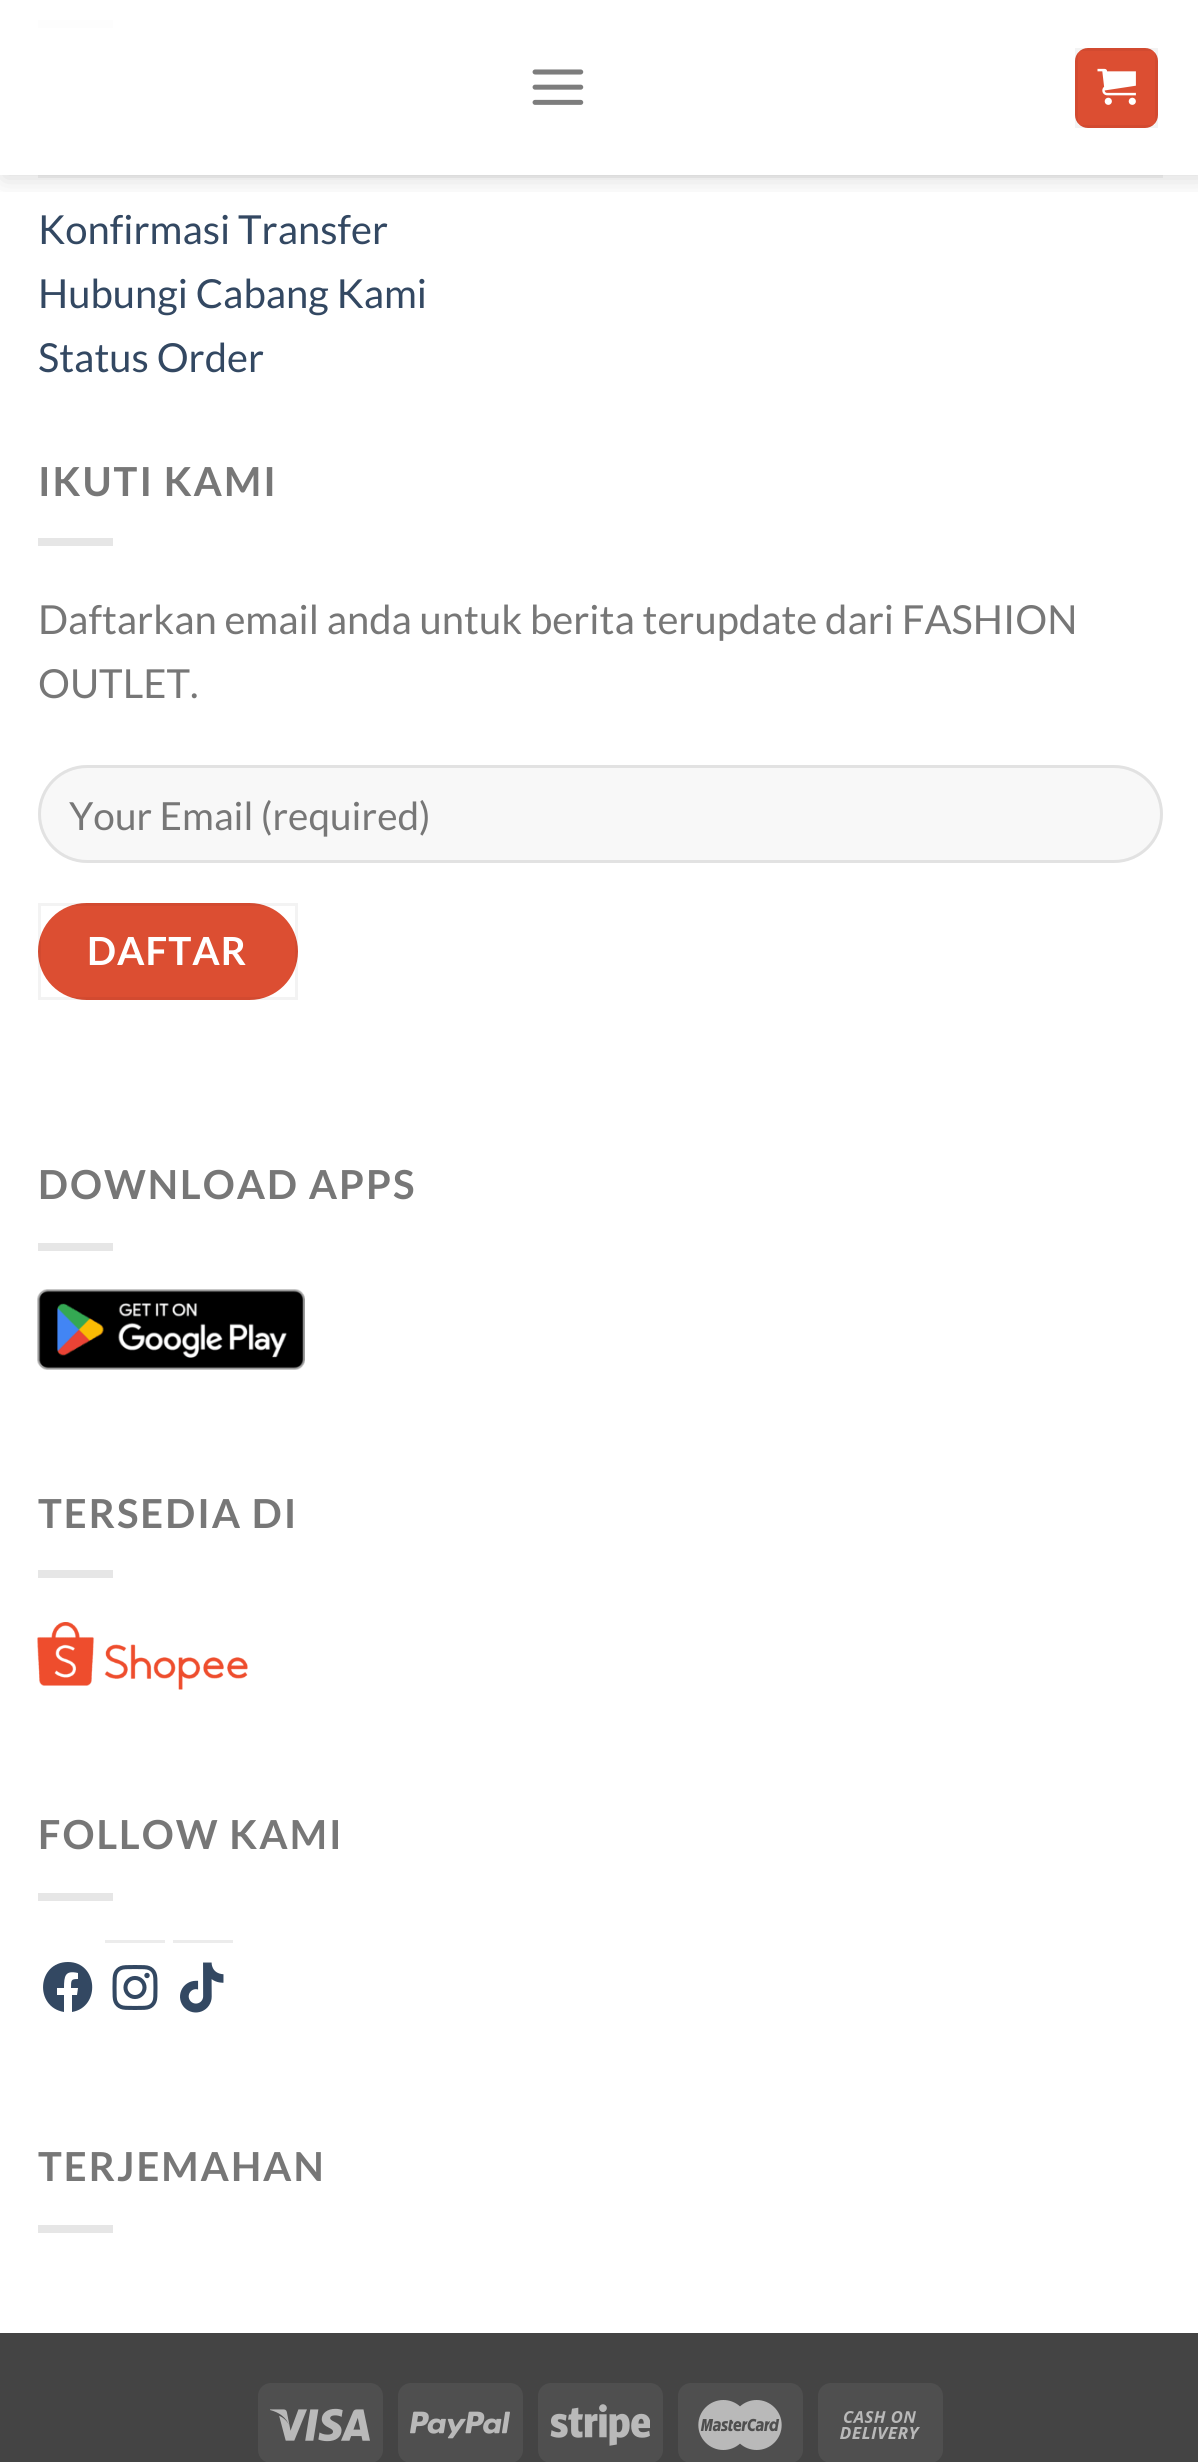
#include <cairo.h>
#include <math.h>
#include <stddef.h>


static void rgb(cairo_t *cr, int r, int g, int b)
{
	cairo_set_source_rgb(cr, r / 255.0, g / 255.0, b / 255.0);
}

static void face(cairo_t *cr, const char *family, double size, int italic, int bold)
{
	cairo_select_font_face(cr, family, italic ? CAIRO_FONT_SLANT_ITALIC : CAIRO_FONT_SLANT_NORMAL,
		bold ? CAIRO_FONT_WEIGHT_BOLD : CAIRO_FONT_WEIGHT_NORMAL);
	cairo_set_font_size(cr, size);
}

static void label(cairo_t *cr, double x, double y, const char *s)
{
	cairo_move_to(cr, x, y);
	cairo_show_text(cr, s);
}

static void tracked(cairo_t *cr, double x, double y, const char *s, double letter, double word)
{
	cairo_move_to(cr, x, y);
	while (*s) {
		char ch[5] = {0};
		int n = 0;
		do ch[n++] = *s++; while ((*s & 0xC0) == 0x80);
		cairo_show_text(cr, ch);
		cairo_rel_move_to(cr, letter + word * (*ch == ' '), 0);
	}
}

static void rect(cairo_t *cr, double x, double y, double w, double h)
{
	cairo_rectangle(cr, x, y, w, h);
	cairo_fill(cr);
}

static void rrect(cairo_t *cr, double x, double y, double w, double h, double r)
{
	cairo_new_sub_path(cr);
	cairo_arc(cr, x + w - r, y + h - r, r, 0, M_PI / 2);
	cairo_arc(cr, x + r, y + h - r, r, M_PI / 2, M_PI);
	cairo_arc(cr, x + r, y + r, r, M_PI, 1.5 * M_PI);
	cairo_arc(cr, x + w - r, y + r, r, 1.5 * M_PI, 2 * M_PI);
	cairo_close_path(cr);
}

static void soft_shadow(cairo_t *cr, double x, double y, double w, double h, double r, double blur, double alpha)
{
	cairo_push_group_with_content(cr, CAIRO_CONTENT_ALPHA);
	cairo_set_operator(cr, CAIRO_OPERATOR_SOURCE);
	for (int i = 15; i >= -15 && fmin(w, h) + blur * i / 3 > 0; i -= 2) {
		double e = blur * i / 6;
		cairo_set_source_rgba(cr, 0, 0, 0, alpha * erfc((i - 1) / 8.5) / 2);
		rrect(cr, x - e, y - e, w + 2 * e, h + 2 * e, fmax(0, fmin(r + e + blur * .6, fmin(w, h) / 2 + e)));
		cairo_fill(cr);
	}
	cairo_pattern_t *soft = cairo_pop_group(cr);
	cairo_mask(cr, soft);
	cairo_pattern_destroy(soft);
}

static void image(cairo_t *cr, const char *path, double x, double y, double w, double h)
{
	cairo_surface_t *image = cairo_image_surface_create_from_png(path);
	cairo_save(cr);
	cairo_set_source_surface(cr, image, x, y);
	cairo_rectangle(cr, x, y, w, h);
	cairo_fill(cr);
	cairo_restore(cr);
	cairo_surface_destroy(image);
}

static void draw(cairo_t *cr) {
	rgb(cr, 255, 255, 255);
	cairo_paint(cr);
	rgb(cr, 230, 230, 230);
	rect(cr, 38, 20, 75, 8);
	cairo_save(cr);
	cairo_rectangle(cr, 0, 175, 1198, 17);
	cairo_clip(cr);
	rgb(cr, 0, 0, 0);
	soft_shadow(cr, 3, 3, 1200, 175, 0, 12.5, 0.15);
	cairo_restore(cr);
	cairo_set_source_rgba(cr, 1, 1, 1, 0.9);
	rect(cr, 38, 20, 75, 8);
	image(cr, "image0.png", 532, 69, 52, 36);
	rgb(cr, 220, 78, 50);
	rrect(cr, 1075, 48, 83, 80, 13);
	cairo_fill(cr);
	cairo_rectangle(cr, 1076.5, 49.5, 80, 77);
	cairo_set_source_rgba(cr, 0, 0, 0, 0.05);
	cairo_set_line_width(cr, 3);
	cairo_stroke(cr);
	image(cr, "image1.png", 1097, 68, 39, 37);
	cairo_set_source_rgba(cr, 0.467, 0.467, 0.467, 0.1);
	rect(cr, 38, 175, 1125, 3);
	face(cr, "Lato", 40, 0, 0);
	rgb(cr, 51, 72, 98);
	label(cr, 38, 244, "Konfirmasi Transfer");
	label(cr, 38, 308, "Hubungi Cabang Kami");
	label(cr, 38, 372, "Status Order");
	face(cr, "Lato", 40, 0, 1);
	rgb(cr, 119, 119, 119);
	tracked(cr, 38, 496, "IKUTI KAMI", 2, 0);
	rgb(cr, 230, 230, 230);
	rect(cr, 38, 538, 75, 8);
	face(cr, "Lato", 40, 0, 0);
	rgb(cr, 119, 119, 119);
	label(cr, 38, 634, "Daftarkan email anda untuk berita terupdate dari FASHION");
	label(cr, 38, 698, "OUTLET.");
	rgb(cr, 248, 248, 248);
	rrect(cr, 38, 765, 1125, 98, 49);
	cairo_fill(cr);
	rrect(cr, 39.5, 766.5, 1122, 95, 47.5);
	cairo_set_source_rgba(cr, 0, 0, 0, 0.09);
	cairo_stroke(cr);
	face(cr, "Lato", 38.75, 0, 0);
	rgb(cr, 119, 119, 119);
	label(cr, 69, 830, "Your Email (required)");
	rgb(cr, 220, 78, 50);
	rrect(cr, 38, 903, 260, 97, 48.5);
	cairo_fill(cr);
	cairo_rectangle(cr, 39.5, 904.5, 257, 94);
	cairo_set_source_rgba(cr, 0, 0, 0, 0.05);
	cairo_stroke(cr);
	face(cr, "Lato", 38.75, 0, 1);
	rgb(cr, 255, 255, 255);
	tracked(cr, 87, 965, "DAFTAR", 1, 0);
	face(cr, "Lato", 40, 0, 1);
	rgb(cr, 119, 119, 119);
	tracked(cr, 38, 1199, "DOWNLOAD APPS", 2, 0);
	rgb(cr, 230, 230, 230);
	rect(cr, 38, 1243, 75, 8);
	image(cr, "image2.png", 37, 1289, 268, 81);
	rgb(cr, 119, 119, 119);
	tracked(cr, 38, 1528, "TERSEDIA DI", 2, 0);
	rgb(cr, 230, 230, 230);
	rect(cr, 38, 1570, 75, 8);
	image(cr, "image3.png", 37, 1622, 211, 68);
	rgb(cr, 119, 119, 119);
	tracked(cr, 38, 1849, "FOLLOW KAMI", 2, 0);
	rgb(cr, 230, 230, 230);
	rect(cr, 38, 1893, 75, 8);
	rgb(cr, 51, 72, 98);
	cairo_new_path(cr);
	cairo_move_to(cr, 68, 1962);
	cairo_curve_to(cr, 37, 1962, 34, 2007, 64, 2012);
	cairo_line_to(cr, 64, 1995);
	cairo_line_to(cr, 57, 1995);
	cairo_line_to(cr, 57, 1988);
	cairo_line_to(cr, 64, 1988);
	cairo_curve_to(cr, 64, 1976, 65, 1970, 78, 1973);
	cairo_line_to(cr, 78, 1979);
	cairo_curve_to(cr, 71, 1979, 71, 1980, 71, 1988);
	cairo_line_to(cr, 78, 1988);
	cairo_line_to(cr, 77, 1995);
	cairo_line_to(cr, 72, 1995);
	cairo_line_to(cr, 72, 2012);
	cairo_curve_to(cr, 101, 2007, 98, 1962, 68, 1962);
	cairo_close_path(cr);
	cairo_fill(cr);
	rgb(cr, 236, 236, 236);
	rect(cr, 105, 1940, 60, 3);
	image(cr, "image4.png", 112, 1965, 46, 45);
	rect(cr, 173, 1940, 60, 3);
	image(cr, "image5.png", 180, 1962, 44, 51);
	rgb(cr, 119, 119, 119);
	tracked(cr, 38, 2181, "TERJEMAHAN", 2, 0);
	rgb(cr, 230, 230, 230);
	rect(cr, 38, 2225, 75, 8);
	rgb(cr, 68, 68, 68);
	rect(cr, 0, 2333, 1198, 129);
	rgb(cr, 79, 79, 79);
	rrect(cr, 258, 2383, 125, 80, 13);
	cairo_fill(cr);
	image(cr, "image6.png", 270, 2408, 100, 34);
	rrect(cr, 398, 2383, 125, 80, 13);
	cairo_fill(cr);
	image(cr, "image7.png", 410, 2411, 100, 28);
	rrect(cr, 538, 2383, 125, 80, 13);
	cairo_fill(cr);
	image(cr, "image8.png", 550, 2404, 100, 42);
	rrect(cr, 678, 2383, 125, 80, 13);
	cairo_fill(cr);
	image(cr, "image9.png", 698, 2400, 84, 50);
	rrect(cr, 818, 2383, 125, 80, 13);
	cairo_fill(cr);
	image(cr, "image10.png", 840, 2411, 80, 28);
}

int main(void) {
	cairo_surface_t *surface = cairo_image_surface_create(CAIRO_FORMAT_RGB24, 1198, 2462);
	cairo_t *cr = cairo_create(surface);
	cairo_font_options_t *options = cairo_font_options_create();
	cairo_font_options_set_hint_metrics(options, CAIRO_HINT_METRICS_OFF);
	cairo_font_options_set_hint_style(options, CAIRO_HINT_STYLE_NONE);
	cairo_set_font_options(cr, options);
	cairo_set_miter_limit(cr, 4);
	draw(cr);
	cairo_surface_write_to_png(surface, "render.png");
	cairo_font_options_destroy(options);
	cairo_destroy(cr);
	cairo_surface_destroy(surface);
	return 0;
}
